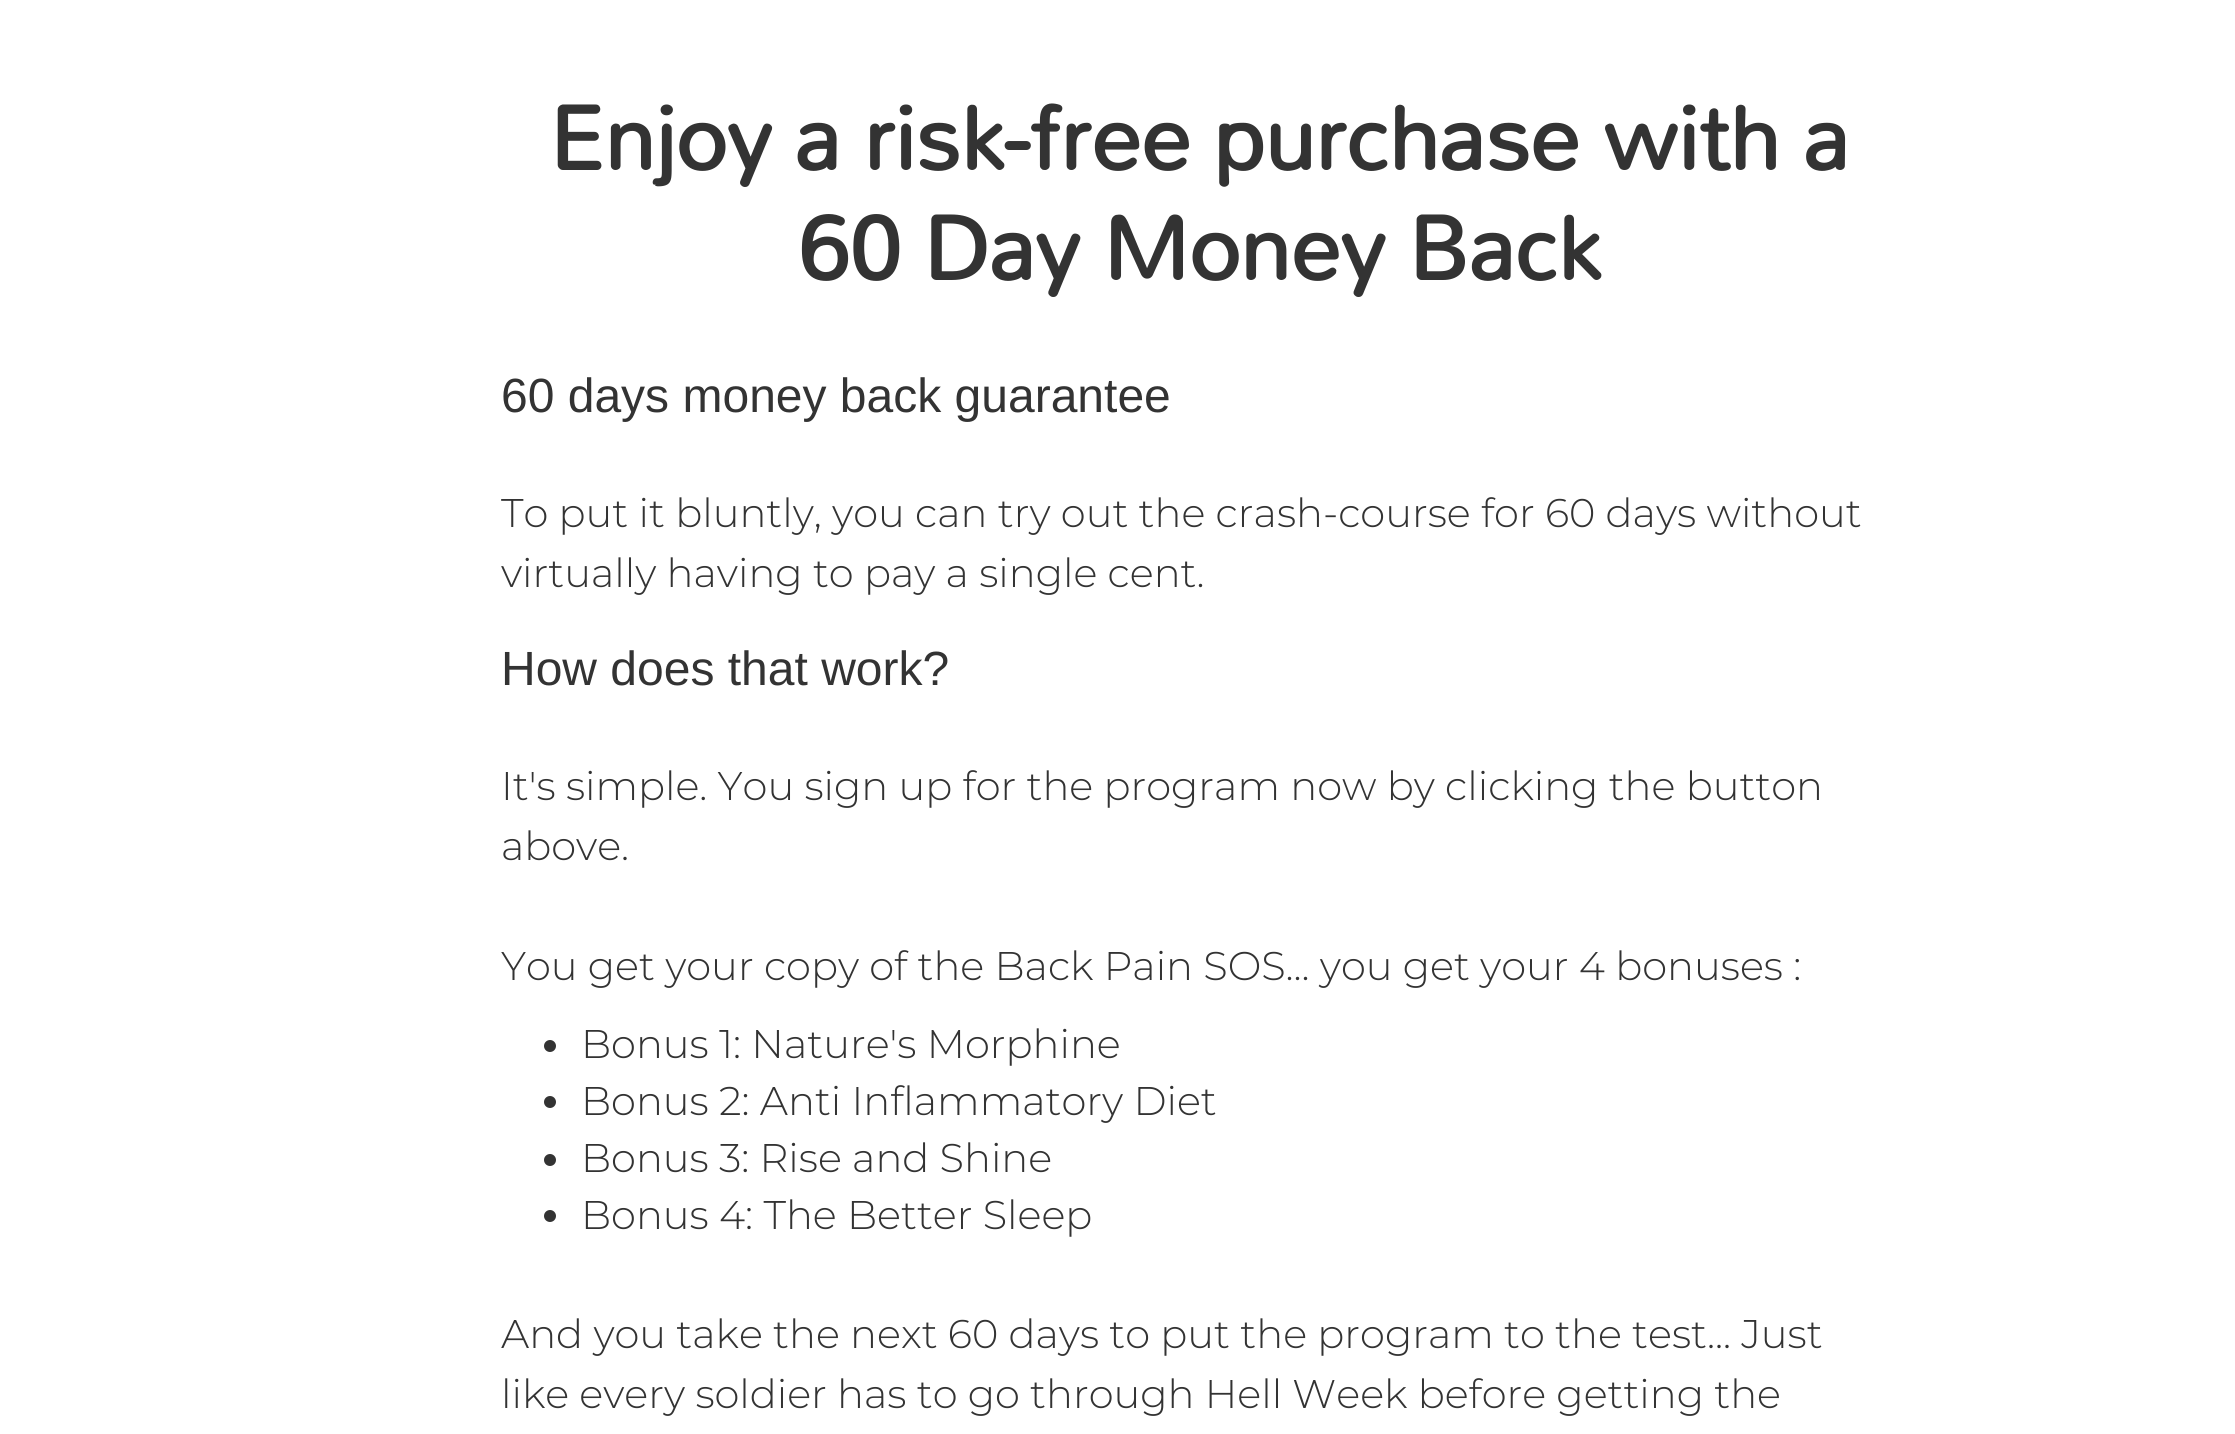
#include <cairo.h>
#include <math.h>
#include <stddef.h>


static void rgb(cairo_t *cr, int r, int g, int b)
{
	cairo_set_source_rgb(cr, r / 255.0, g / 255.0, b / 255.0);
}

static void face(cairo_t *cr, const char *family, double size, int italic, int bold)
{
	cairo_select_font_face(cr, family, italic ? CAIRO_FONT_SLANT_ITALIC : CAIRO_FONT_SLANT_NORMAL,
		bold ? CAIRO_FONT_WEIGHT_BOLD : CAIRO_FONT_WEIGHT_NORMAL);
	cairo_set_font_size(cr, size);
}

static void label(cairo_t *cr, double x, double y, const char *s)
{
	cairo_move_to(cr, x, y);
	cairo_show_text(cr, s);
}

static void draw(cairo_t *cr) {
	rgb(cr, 255, 255, 255);
	cairo_paint(cr);
	face(cr, "Mallanna", 100, 0, 1);
	rgb(cr, 51, 51, 51);
	label(cr, 549, 170, "Enjoy a risk-free purchase with a");
	label(cr, 798, 280, "60 Day Money Back");
	face(cr, "Liberation Sans", 48, 0, 0);
	label(cr, 501, 412, "60 days money back guarantee");
	face(cr, "Montserrat Thin", 40, 0, 0);
	label(cr, 501, 527, "To put it bluntly, you can try out the crash-course for 60 days without");
	label(cr, 501, 587, "virtually having to pay a single cent.");
	face(cr, "Liberation Sans", 48, 0, 0);
	label(cr, 501, 685, "How does that work?");
	face(cr, "Montserrat Thin", 40, 0, 0);
	label(cr, 501, 800, "It's simple. You sign up for the program now by clicking the button");
	label(cr, 501, 860, "above.");
	label(cr, 501, 980, "You get your copy of the Back Pain SOS... you get your 4 bonuses :");
	cairo_new_path(cr);
	cairo_arc(cr, 550, 1046, 6, 0, 2 * M_PI);
	cairo_fill(cr);
	label(cr, 581, 1058, "Bonus 1: Nature's Morphine");
	cairo_new_path(cr);
	cairo_arc(cr, 550, 1102, 6, 0, 2 * M_PI);
	cairo_fill(cr);
	label(cr, 581, 1115, "Bonus 2: Anti Inflammatory Diet");
	cairo_new_path(cr);
	cairo_arc(cr, 550, 1160, 6, 0, 2 * M_PI);
	cairo_fill(cr);
	label(cr, 581, 1172, "Bonus 3: Rise and Shine");
	cairo_new_path(cr);
	cairo_arc(cr, 550, 1216, 6, 0, 2 * M_PI);
	cairo_fill(cr);
	label(cr, 581, 1229, "Bonus 4: The Better Sleep");
	label(cr, 501, 1348, "And you take the next 60 days to put the program to the test... Just");
	label(cr, 501, 1408, "like every soldier has to go through Hell Week before getting the");
}

int main(void) {
	cairo_surface_t *surface = cairo_image_surface_create(CAIRO_FORMAT_RGB24, 2235, 1434);
	cairo_t *cr = cairo_create(surface);
	cairo_font_options_t *options = cairo_font_options_create();
	cairo_font_options_set_hint_metrics(options, CAIRO_HINT_METRICS_OFF);
	cairo_font_options_set_hint_style(options, CAIRO_HINT_STYLE_NONE);
	cairo_set_font_options(cr, options);
	cairo_set_miter_limit(cr, 4);
	draw(cr);
	cairo_surface_write_to_png(surface, "render.png");
	cairo_font_options_destroy(options);
	cairo_destroy(cr);
	cairo_surface_destroy(surface);
	return 0;
}
